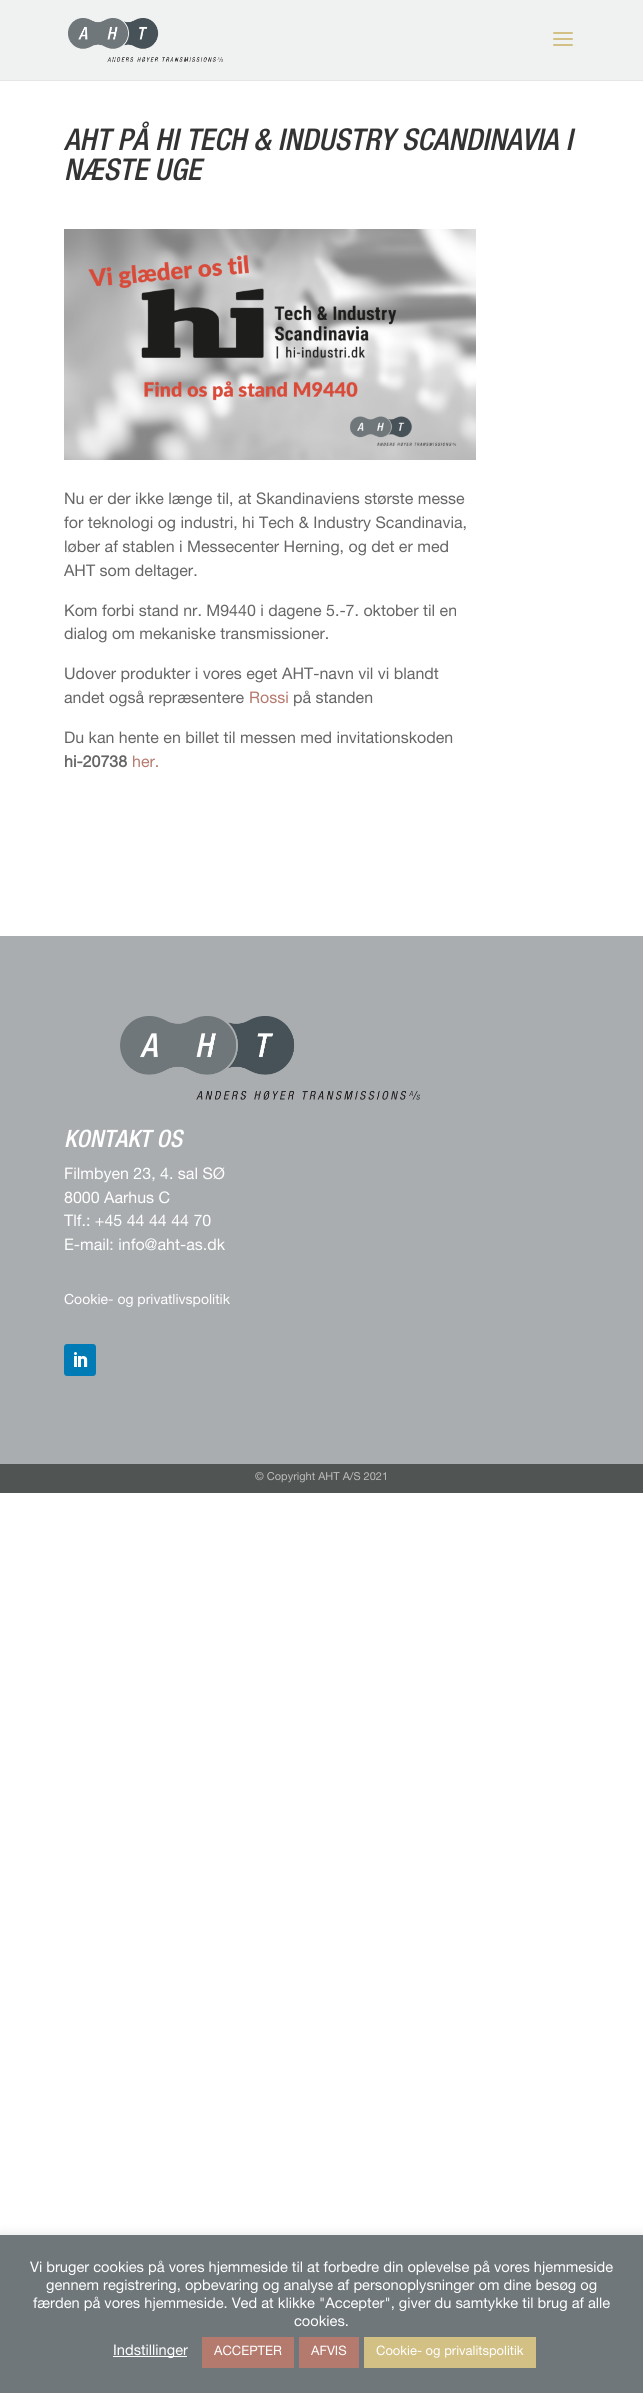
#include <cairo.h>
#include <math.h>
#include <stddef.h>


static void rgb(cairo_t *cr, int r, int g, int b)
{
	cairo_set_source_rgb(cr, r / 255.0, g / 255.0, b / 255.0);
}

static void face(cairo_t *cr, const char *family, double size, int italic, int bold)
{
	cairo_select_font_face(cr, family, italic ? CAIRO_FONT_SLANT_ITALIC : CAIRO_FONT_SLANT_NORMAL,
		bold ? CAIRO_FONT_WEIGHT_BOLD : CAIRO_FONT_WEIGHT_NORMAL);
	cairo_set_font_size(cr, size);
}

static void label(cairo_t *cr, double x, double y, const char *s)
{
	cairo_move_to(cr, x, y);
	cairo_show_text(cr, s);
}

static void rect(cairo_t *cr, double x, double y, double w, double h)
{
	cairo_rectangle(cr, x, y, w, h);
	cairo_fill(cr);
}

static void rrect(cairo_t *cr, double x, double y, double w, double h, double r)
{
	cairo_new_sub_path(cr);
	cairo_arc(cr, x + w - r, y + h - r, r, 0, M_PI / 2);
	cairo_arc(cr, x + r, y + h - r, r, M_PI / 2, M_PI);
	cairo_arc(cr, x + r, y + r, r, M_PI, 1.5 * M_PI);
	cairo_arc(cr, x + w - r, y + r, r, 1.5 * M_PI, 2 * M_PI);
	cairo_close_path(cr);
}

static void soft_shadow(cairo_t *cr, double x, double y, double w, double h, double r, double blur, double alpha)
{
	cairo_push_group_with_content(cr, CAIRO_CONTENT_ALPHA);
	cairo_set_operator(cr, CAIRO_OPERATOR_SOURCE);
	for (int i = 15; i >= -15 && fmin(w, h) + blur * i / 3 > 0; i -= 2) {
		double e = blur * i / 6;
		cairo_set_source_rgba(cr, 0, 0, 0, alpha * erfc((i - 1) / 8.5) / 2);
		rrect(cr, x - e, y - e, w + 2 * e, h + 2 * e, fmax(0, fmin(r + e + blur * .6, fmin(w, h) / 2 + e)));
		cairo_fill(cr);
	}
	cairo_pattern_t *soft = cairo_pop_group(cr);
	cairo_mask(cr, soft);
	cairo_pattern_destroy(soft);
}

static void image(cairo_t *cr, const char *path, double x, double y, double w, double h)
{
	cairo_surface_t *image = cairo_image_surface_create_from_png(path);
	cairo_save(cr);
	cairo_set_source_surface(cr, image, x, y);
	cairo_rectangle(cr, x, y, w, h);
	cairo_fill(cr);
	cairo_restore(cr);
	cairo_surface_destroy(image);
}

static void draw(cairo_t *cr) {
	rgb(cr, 255, 255, 255);
	cairo_paint(cr);
	rgb(cr, 230, 230, 230);
	rect(cr, 0, 80, 643, 1);
	rgb(cr, 240, 241, 241);
	rect(cr, 0, 0, 643, 80);
	image(cr, "image0.png", 68, 18, 155, 44);
	image(cr, "image1.png", 553, 32, 20, 14);
	face(cr, "Helvetica Neue Medium", 30, 1, 0);
	rgb(cr, 51, 51, 51);
	label(cr, 64, 150, "AHT PÅ HI TECH & INDUSTRY SCANDINAVIA I");
	label(cr, 64, 180, "NÆSTE UGE");
	image(cr, "image2.png", 64, 229, 412, 231);
	face(cr, "Helvetica Neue", 16, 0, 0);
	rgb(cr, 102, 102, 102);
	label(cr, 64, 504, "Nu er der ikke længe til, at Skandinaviens største messe");
	label(cr, 64, 528, "for teknologi og industri, hi Tech & Industry Scandinavia,");
	label(cr, 64, 552, "løber af stablen i Messecenter Herning, og det er med");
	label(cr, 64, 576, "AHT som deltager.");
	label(cr, 64, 616, "Kom forbi stand nr. M9440 i dagene 5.-7. oktober til en");
	label(cr, 64, 639, "dialog om mekaniske transmissioner.");
	label(cr, 64, 679, "Udover produkter i vores eget AHT-navn vil vi blandt");
	label(cr, 64, 703, "andet også repræsentere");
	rgb(cr, 181, 122, 110);
	label(cr, 249, 703, "Rossi");
	rgb(cr, 102, 102, 102);
	label(cr, 293, 703, "på standen");
	label(cr, 64, 743, "Du kan hente en billet til messen med invitationskoden");
	face(cr, "Helvetica Neue", 16, 0, 1);
	label(cr, 64, 767, "hi-20738");
	face(cr, "Helvetica Neue", 16, 0, 0);
	rgb(cr, 181, 122, 110);
	label(cr, 132, 767, "her.");
	rgb(cr, 169, 173, 175);
	rect(cr, 0, 936, 643, 528);
	image(cr, "image3.png", 120, 1016, 300, 84);
	face(cr, "Helvetica Neue Medium", 24, 1, 0);
	rgb(cr, 255, 255, 255);
	label(cr, 64, 1147, "KONTAKT OS");
	face(cr, "Helvetica Neue", 16, 0, 0);
	label(cr, 64, 1179, "Filmbyen 23, 4. sal SØ");
	label(cr, 64, 1203, "8000 Aarhus C");
	label(cr, 64, 1226, "Tlf.: +45 44 44 44 70");
	label(cr, 64, 1250, "E-mail: info@aht-as.dk");
	face(cr, "Helvetica Neue", 14, 0, 0);
	label(cr, 64, 1304, "Cookie- og privatlivspolitik");
	rgb(cr, 0, 123, 182);
	rrect(cr, 64, 1344, 32, 32, 3);
	cairo_fill(cr);
	image(cr, "image4.png", 74, 1352, 14, 15);
	rgb(cr, 80, 85, 83);
	rect(cr, 0, 1464, 643, 29);
	face(cr, "Helvetica Neue", 11, 0, 0);
	rgb(cr, 188, 188, 188);
	label(cr, 255, 1480, "© Copyright AHT A/S 2021");
	rgb(cr, 172, 171, 171);
	soft_shadow(cr, 0, 2234, 643, 158, 0, 5, 0.3);
	rgb(cr, 112, 119, 122);
	rect(cr, 0, 2235, 643, 158);
	face(cr, "Helvetica Neue", 14.65, 0, 0);
	rgb(cr, 255, 255, 255);
	label(cr, 30, 2272, "Vi bruger cookies på vores hjemmeside til at forbedre din oplevelse på vores hjemmeside");
	label(cr, 46, 2290, "gennem registrering, opbevaring og analyse af personoplysninger om dine besøg og");
	label(cr, 33, 2308, "færden på vores hjemmeside. Ved at klikke \"Accepter\", giver du samtykke til brug af alle");
	label(cr, 294, 2326, "cookies.");
	rect(cr, 113, 2356, 74, 1);
	label(cr, 113, 2355, "Indstillinger");
	rgb(cr, 181, 122, 110);
	rect(cr, 202, 2337, 92, 31);
	face(cr, "Helvetica Neue", 13, 0, 0);
	rgb(cr, 255, 255, 255);
	label(cr, 214, 2355, "ACCEPTER");
	rgb(cr, 181, 122, 110);
	rect(cr, 299, 2337, 60, 31);
	rgb(cr, 255, 255, 255);
	label(cr, 311, 2355, "AFVIS");
	rgb(cr, 210, 192, 132);
	rect(cr, 364, 2337, 172, 31);
	rgb(cr, 255, 255, 255);
	label(cr, 376, 2355, "Cookie- og privalitspolitik");
}

int main(void) {
	cairo_surface_t *surface = cairo_image_surface_create(CAIRO_FORMAT_RGB24, 643, 2393);
	cairo_t *cr = cairo_create(surface);
	cairo_font_options_t *options = cairo_font_options_create();
	cairo_font_options_set_hint_metrics(options, CAIRO_HINT_METRICS_OFF);
	cairo_font_options_set_hint_style(options, CAIRO_HINT_STYLE_NONE);
	cairo_set_font_options(cr, options);
	cairo_set_miter_limit(cr, 4);
	draw(cr);
	cairo_surface_write_to_png(surface, "render.png");
	cairo_font_options_destroy(options);
	cairo_destroy(cr);
	cairo_surface_destroy(surface);
	return 0;
}
